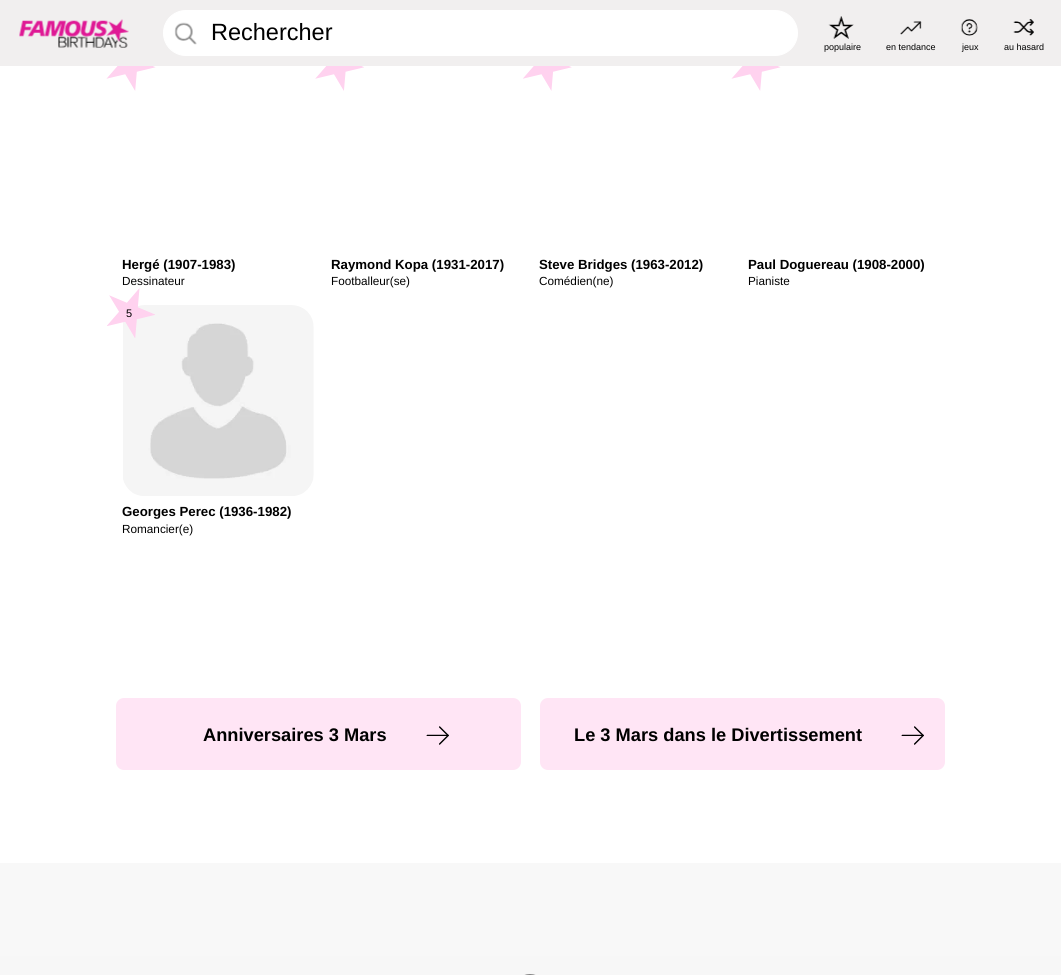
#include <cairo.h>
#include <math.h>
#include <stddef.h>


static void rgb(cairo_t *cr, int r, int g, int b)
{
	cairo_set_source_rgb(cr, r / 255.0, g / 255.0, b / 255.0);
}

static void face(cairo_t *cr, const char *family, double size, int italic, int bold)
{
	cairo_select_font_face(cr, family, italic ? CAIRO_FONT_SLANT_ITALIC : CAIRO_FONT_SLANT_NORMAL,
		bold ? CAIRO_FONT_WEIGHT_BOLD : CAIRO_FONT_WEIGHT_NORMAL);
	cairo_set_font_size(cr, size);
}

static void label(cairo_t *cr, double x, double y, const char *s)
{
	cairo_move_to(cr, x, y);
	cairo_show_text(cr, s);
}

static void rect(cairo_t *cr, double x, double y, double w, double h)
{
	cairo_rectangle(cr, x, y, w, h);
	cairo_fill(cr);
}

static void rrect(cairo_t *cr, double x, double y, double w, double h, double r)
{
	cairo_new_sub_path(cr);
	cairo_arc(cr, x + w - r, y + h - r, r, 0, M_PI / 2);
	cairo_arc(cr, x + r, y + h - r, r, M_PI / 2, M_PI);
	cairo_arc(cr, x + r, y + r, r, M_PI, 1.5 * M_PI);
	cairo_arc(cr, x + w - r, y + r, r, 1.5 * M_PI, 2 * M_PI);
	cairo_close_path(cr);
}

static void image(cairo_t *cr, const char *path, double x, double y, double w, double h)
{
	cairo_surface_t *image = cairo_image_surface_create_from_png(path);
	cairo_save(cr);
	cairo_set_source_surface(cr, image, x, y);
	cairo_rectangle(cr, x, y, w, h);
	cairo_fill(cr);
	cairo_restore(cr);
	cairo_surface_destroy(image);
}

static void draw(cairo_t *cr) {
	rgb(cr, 255, 255, 255);
	cairo_paint(cr);
	rgb(cr, 248, 248, 248);
	rect(cr, 0, 863, 1061, 93);
	rgb(cr, 241, 239, 239);
	rect(cr, 0, 0, 1061, 66);
	image(cr, "image0.png", 19, 19, 110, 29);
	rgb(cr, 255, 255, 255);
	rrect(cr, 163.5, 10.5, 634, 45, 22.5);
	cairo_fill_preserve(cr);
	cairo_set_line_width(cr, 1);
	cairo_stroke(cr);
	image(cr, "image1.png", 174, 22, 23, 23);
	face(cr, "Liberation Sans", 23.5, 0, 0);
	rgb(cr, 0, 0, 0);
	label(cr, 211, 40, "Rechercher");
	image(cr, "image2.png", 828, 16, 26, 23);
	face(cr, "Liberation Sans", 9, 0, 0);
	label(cr, 824, 50, "populaire");
	image(cr, "image3.png", 900, 21, 22, 14);
	label(cr, 886, 50, "en tendance");
	image(cr, "image4.png", 960, 19, 18, 17);
	label(cr, 962, 50, "jeux");
	image(cr, "image5.png", 1013, 19, 21, 17);
	label(cr, 1004, 50, "au hasard");
	image(cr, "image6.png", 106, 66, 50, 25);
	face(cr, "Liberation Sans", 13.25, 0, 1);
	label(cr, 122, 269, "Hergé (1907-1983)");
	face(cr, "Liberation Sans", 11.75, 0, 0);
	label(cr, 122, 285, "Dessinateur");
	image(cr, "image7.png", 315, 66, 49, 25);
	face(cr, "Liberation Sans", 13.25, 0, 1);
	label(cr, 331, 269, "Raymond Kopa (1931-2017)");
	face(cr, "Liberation Sans", 11.75, 0, 0);
	label(cr, 331, 285, "Footballeur(se)");
	image(cr, "image8.png", 523, 66, 49, 25);
	face(cr, "Liberation Sans", 13.25, 0, 1);
	label(cr, 539, 269, "Steve Bridges (1963-2012)");
	face(cr, "Liberation Sans", 11.75, 0, 0);
	label(cr, 539, 285, "Comédien(ne)");
	image(cr, "image9.png", 731, 66, 50, 25);
	face(cr, "Liberation Sans", 13.25, 0, 1);
	label(cr, 748, 269, "Paul Doguereau (1908-2000)");
	face(cr, "Liberation Sans", 11.75, 0, 0);
	label(cr, 748, 285, "Pianiste");
	image(cr, "image10.png", 123, 305, 191, 191);
	image(cr, "image11.png", 107, 288, 48, 50);
	face(cr, "Liberation Sans", 11, 0, 0);
	label(cr, 126, 317, "5");
	face(cr, "Liberation Sans", 13.25, 0, 1);
	label(cr, 122, 516, "Georges Perec (1936-1982)");
	face(cr, "Liberation Sans", 11.75, 0, 0);
	label(cr, 122, 533, "Romancier(e)");
	rgb(cr, 255, 229, 245);
	rrect(cr, 116, 698, 405, 72, 8);
	cairo_fill(cr);
	face(cr, "Liberation Sans", 18.25, 0, 1);
	rgb(cr, 0, 0, 0);
	label(cr, 203, 741, "Anniversaires 3 Mars");
	image(cr, "image12.png", 426, 726, 23, 19);
	rgb(cr, 255, 229, 245);
	rrect(cr, 540, 698, 405, 72, 8);
	cairo_fill(cr);
	rgb(cr, 0, 0, 0);
	label(cr, 574, 741, "Le 3 Mars dans le Divertissement");
	image(cr, "image12.png", 901, 726, 23, 19);
	rgb(cr, 247, 247, 247);
	rect(cr, 0, 956, 1061, 19);
	rrect(cr, 516.5, 974.5, 27, 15, 13);
	rgb(cr, 136, 136, 136);
	cairo_stroke(cr);
}

int main(void) {
	cairo_surface_t *surface = cairo_image_surface_create(CAIRO_FORMAT_RGB24, 1061, 975);
	cairo_t *cr = cairo_create(surface);
	cairo_font_options_t *options = cairo_font_options_create();
	cairo_font_options_set_hint_metrics(options, CAIRO_HINT_METRICS_OFF);
	cairo_font_options_set_hint_style(options, CAIRO_HINT_STYLE_NONE);
	cairo_set_font_options(cr, options);
	cairo_set_miter_limit(cr, 4);
	draw(cr);
	cairo_surface_write_to_png(surface, "render.png");
	cairo_font_options_destroy(options);
	cairo_destroy(cr);
	cairo_surface_destroy(surface);
	return 0;
}
